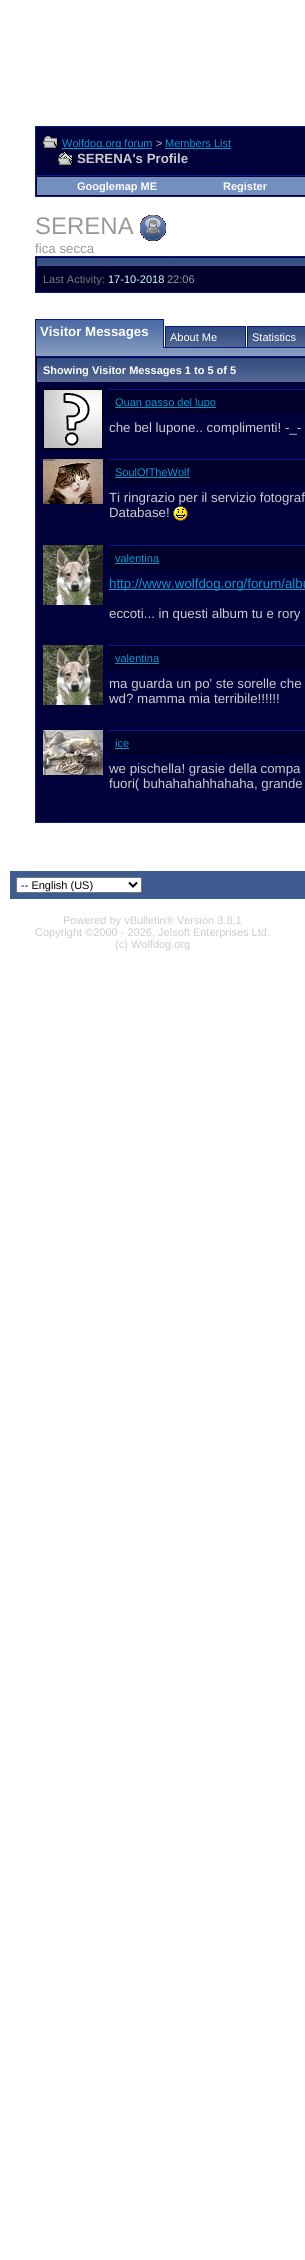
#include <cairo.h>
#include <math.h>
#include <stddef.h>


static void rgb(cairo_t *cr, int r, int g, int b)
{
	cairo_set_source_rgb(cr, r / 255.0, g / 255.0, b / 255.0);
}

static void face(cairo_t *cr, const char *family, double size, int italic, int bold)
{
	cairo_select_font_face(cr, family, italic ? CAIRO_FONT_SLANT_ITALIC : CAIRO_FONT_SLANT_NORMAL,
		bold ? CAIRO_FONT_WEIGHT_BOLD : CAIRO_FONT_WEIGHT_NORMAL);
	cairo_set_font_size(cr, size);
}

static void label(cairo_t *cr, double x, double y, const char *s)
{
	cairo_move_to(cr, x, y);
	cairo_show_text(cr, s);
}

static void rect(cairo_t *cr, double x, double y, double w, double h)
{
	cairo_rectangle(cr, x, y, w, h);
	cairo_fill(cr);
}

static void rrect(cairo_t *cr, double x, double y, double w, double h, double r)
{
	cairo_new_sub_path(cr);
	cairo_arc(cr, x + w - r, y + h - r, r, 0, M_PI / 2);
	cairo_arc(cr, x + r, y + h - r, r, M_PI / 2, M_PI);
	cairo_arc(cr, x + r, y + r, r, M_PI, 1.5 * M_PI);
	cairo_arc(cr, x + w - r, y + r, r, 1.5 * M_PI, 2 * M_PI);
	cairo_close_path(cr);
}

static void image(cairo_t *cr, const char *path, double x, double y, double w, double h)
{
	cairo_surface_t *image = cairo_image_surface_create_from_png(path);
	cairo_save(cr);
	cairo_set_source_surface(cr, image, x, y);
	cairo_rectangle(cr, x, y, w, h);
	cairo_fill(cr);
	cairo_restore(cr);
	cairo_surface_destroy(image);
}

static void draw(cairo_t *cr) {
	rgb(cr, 255, 255, 255);
	cairo_paint(cr);
	rgb(cr, 0, 0, 58);
	cairo_rectangle(cr, 35.5, 126.5, 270, 49);
	cairo_fill_preserve(cr);
	rgb(cr, 11, 25, 140);
	cairo_set_line_width(cr, 1);
	cairo_stroke(cr);
	image(cr, "image0.png", 43, 136, 15, 13);
	rgb(cr, 0, 153, 204);
	rect(cr, 62, 148, 90, 1);
	face(cr, "Liberation Sans", 11, 0, 0);
	label(cr, 62, 147, "Wolfdog.org forum");
	rgb(cr, 204, 204, 204);
	label(cr, 156, 147, ">");
	rgb(cr, 0, 153, 204);
	label(cr, 165, 147, "Members List");
	rect(cr, 165, 148, 66, 1);
	image(cr, "image1.png", 49, 152, 24, 14);
	face(cr, "Liberation Sans", 13.3, 0, 1);
	rgb(cr, 204, 204, 204);
	label(cr, 77, 163, "SERENA's Profile");
	rgb(cr, 0, 0, 58);
	rect(cr, 36, 176, 269, 20);
	rgb(cr, 11, 25, 140);
	rect(cr, 35, 196, 270, 1);
	rect(cr, 35, 176, 1, 21);
	rgb(cr, 115, 143, 191);
	rect(cr, 37, 177, 268, 18);
	face(cr, "Liberation Sans", 11, 0, 1);
	rgb(cr, 255, 255, 255);
	label(cr, 77, 190, "Googlemap ME");
	label(cr, 223, 190, "Register");
	face(cr, "Liberation Sans", 24, 0, 0);
	rgb(cr, 153, 153, 153);
	label(cr, 35, 234, "SERENA");
	image(cr, "image2.png", 140, 215, 26, 26);
	face(cr, "Liberation Sans", 13.3, 0, 0);
	label(cr, 35, 253, "fica secca");
	rgb(cr, 0, 0, 58);
	cairo_rectangle(cr, 35.5, 256.5, 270, 36);
	cairo_fill_preserve(cr);
	rgb(cr, 11, 25, 140);
	cairo_stroke(cr);
	image(cr, "image3.png", 37, 258, 268, 8);
	rgb(cr, 0, 0, 42);
	rect(cr, 37, 267, 268, 24);
	face(cr, "Liberation Sans", 11, 0, 0);
	rgb(cr, 119, 119, 119);
	label(cr, 43, 283, "Last Activity:");
	rgb(cr, 204, 255, 255);
	label(cr, 108, 283, "17-10-2018");
	rgb(cr, 153, 153, 153);
	label(cr, 167, 283, "22:06");
	image(cr, "image4.png", 36, 320, 127, 28);
	rgb(cr, 11, 25, 140);
	rect(cr, 35, 319, 129, 1);
	rect(cr, 163, 319, 1, 29);
	rect(cr, 35, 347, 1, 9);
	rect(cr, 35, 319, 1, 29);
	face(cr, "Liberation Sans", 13.3, 0, 1);
	rgb(cr, 255, 255, 255);
	label(cr, 40, 336, "Visitor Messages");
	image(cr, "image5.png", 166, 327, 79, 20);
	rgb(cr, 11, 25, 140);
	rect(cr, 164, 347, 83, 1);
	cairo_rectangle(cr, 165.5, 326.5, 80, 21);
	cairo_stroke(cr);
	face(cr, "Liberation Sans", 11, 0, 0);
	rgb(cr, 255, 255, 255);
	label(cr, 170, 341, "About Me");
	image(cr, "image6.png", 248, 327, 57, 20);
	cairo_rectangle(cr, 247.5, 326.5, 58, 21);
	rgb(cr, 11, 25, 140);
	cairo_stroke(cr);
	rgb(cr, 255, 255, 255);
	label(cr, 252, 341, "Statistics");
	rgb(cr, 134, 155, 191);
	rect(cr, 36, 353, 269, 3);
	image(cr, "image7.png", 36, 348, 269, 5);
	rgb(cr, 0, 0, 58);
	cairo_rectangle(cr, 35.5, 356.5, 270, 466);
	cairo_fill_preserve(cr);
	rgb(cr, 11, 25, 140);
	cairo_stroke(cr);
	image(cr, "image8.png", 37, 358, 268, 24);
	face(cr, "Liberation Sans", 11, 0, 1);
	rgb(cr, 255, 255, 255);
	label(cr, 43, 374, "Showing Visitor Messages 1 to 5 of 5");
	image(cr, "image9.png", 43, 389, 60, 60);
	rgb(cr, 11, 25, 140);
	rect(cr, 109, 389, 196, 1);
	rgb(cr, 0, 0, 42);
	rect(cr, 109, 390, 196, 24);
	rgb(cr, 0, 153, 204);
	rect(cr, 115, 407, 101, 1);
	face(cr, "Liberation Sans", 11, 0, 0);
	label(cr, 115, 406, "Quan passo del lupo");
	face(cr, "Liberation Sans", 13.3, 0, 0);
	rgb(cr, 204, 204, 204);
	label(cr, 109, 432, "che bel lupone.. complimenti! -_-");
	image(cr, "image10.png", 43, 459, 60, 45);
	rgb(cr, 11, 25, 140);
	rect(cr, 109, 459, 196, 1);
	rgb(cr, 0, 0, 42);
	rect(cr, 109, 460, 196, 24);
	face(cr, "Liberation Sans", 11, 0, 0);
	rgb(cr, 0, 153, 204);
	label(cr, 115, 476, "SoulOfTheWolf");
	rect(cr, 115, 477, 75, 1);
	face(cr, "Liberation Sans", 13.3, 0, 0);
	rgb(cr, 204, 204, 204);
	label(cr, 109, 502, "Ti ringrazio per il servizio fotograf");
	label(cr, 109, 517, "Database!");
	image(cr, "image11.png", 173, 506, 15, 15);
	image(cr, "image12.png", 43, 545, 60, 60);
	rgb(cr, 11, 25, 140);
	rect(cr, 109, 545, 196, 1);
	rgb(cr, 0, 0, 42);
	rect(cr, 109, 546, 196, 24);
	face(cr, "Liberation Sans", 11, 0, 0);
	rgb(cr, 0, 153, 204);
	label(cr, 115, 562, "valentina");
	rect(cr, 115, 563, 44, 1);
	rect(cr, 109, 589, 196, 1);
	face(cr, "Liberation Sans", 13.3, 0, 0);
	label(cr, 109, 588, "http://www.wolfdog.org/forum/albu");
	rgb(cr, 204, 204, 204);
	label(cr, 109, 618, "eccoti... in questi album tu e rory");
	image(cr, "image12.png", 43, 645, 60, 60);
	rgb(cr, 11, 25, 140);
	rect(cr, 109, 645, 196, 1);
	rgb(cr, 0, 0, 42);
	rect(cr, 109, 646, 196, 24);
	face(cr, "Liberation Sans", 11, 0, 0);
	rgb(cr, 0, 153, 204);
	label(cr, 115, 662, "valentina");
	rect(cr, 115, 663, 44, 1);
	face(cr, "Liberation Sans", 13.3, 0, 0);
	rgb(cr, 204, 204, 204);
	label(cr, 109, 688, "ma guarda un po' ste sorelle che");
	label(cr, 109, 703, "wd? mamma mia terribile!!!!!!");
	image(cr, "image13.png", 43, 730, 60, 45);
	rgb(cr, 11, 25, 140);
	rect(cr, 109, 730, 196, 1);
	rgb(cr, 0, 0, 42);
	rect(cr, 109, 731, 196, 24);
	face(cr, "Liberation Sans", 11, 0, 0);
	rgb(cr, 0, 153, 204);
	label(cr, 115, 747, "ice");
	rect(cr, 115, 748, 14, 1);
	face(cr, "Liberation Sans", 13.3, 0, 0);
	rgb(cr, 204, 204, 204);
	label(cr, 109, 773, "we pischella! grasie della compa");
	label(cr, 109, 788, "fuori( buhahahahhahaha, grande");
	rgb(cr, 62, 92, 146);
	rect(cr, 10, 871, 295, 28);
	rgb(cr, 255, 255, 255);
	rrect(cr, 16.5, 877.5, 125, 15, 1.5);
	cairo_fill_preserve(cr);
	rgb(cr, 118, 118, 118);
	cairo_stroke(cr);
	cairo_new_path(cr);
	cairo_move_to(cr, 129, 882.5);
	cairo_line_to(cr, 133, 886.5);
	cairo_line_to(cr, 137, 882.5);
	rgb(cr, 0, 0, 0);
	cairo_set_line_width(cr, 2);
	cairo_stroke(cr);
	face(cr, "Liberation Sans", 11, 0, 0);
	label(cr, 21, 889, "-- English (US)");
	rgb(cr, 204, 204, 204);
	label(cr, 63, 924, "Powered by vBulletin® Version 3.8.1");
	label(cr, 35, 936, "Copyright ©2000 - 2026, Jelsoft Enterprises Ltd.");
	label(cr, 115, 948, "(c) Wolfdog.org");
}

int main(void) {
	cairo_surface_t *surface = cairo_image_surface_create(CAIRO_FORMAT_RGB24, 305, 2260);
	cairo_t *cr = cairo_create(surface);
	cairo_font_options_t *options = cairo_font_options_create();
	cairo_font_options_set_hint_metrics(options, CAIRO_HINT_METRICS_OFF);
	cairo_font_options_set_hint_style(options, CAIRO_HINT_STYLE_NONE);
	cairo_set_font_options(cr, options);
	cairo_set_miter_limit(cr, 4);
	draw(cr);
	cairo_surface_write_to_png(surface, "render.png");
	cairo_font_options_destroy(options);
	cairo_destroy(cr);
	cairo_surface_destroy(surface);
	return 0;
}
